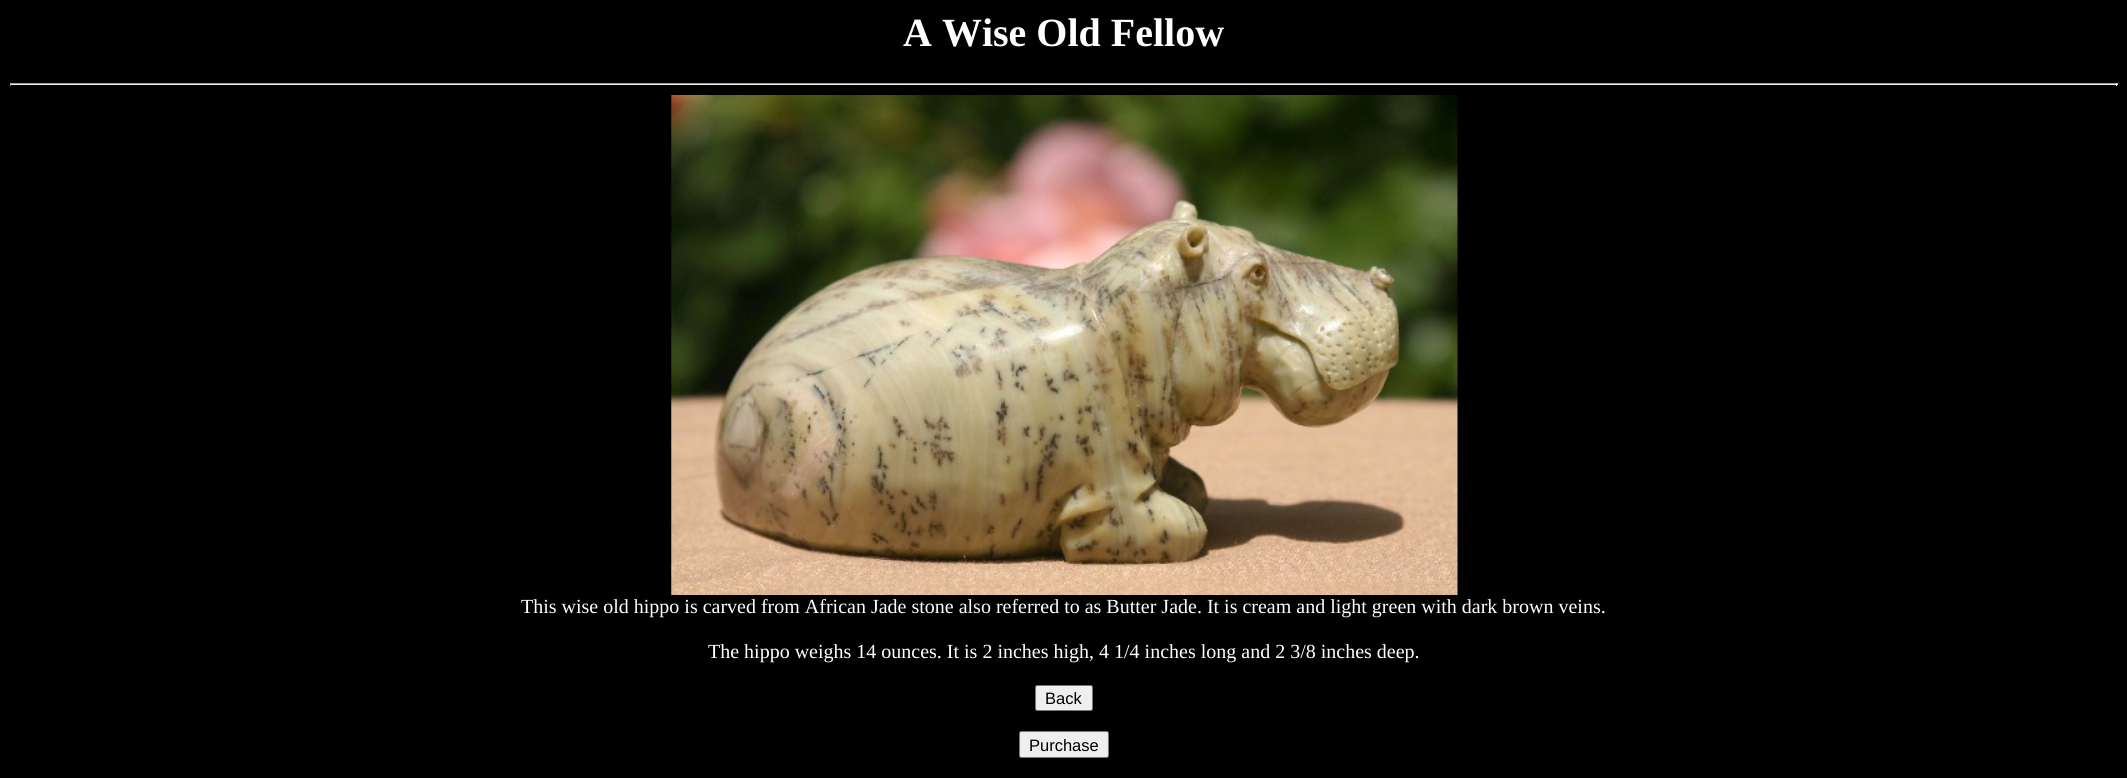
#include <cairo.h>
#include <math.h>
#include <stddef.h>


static void rgb(cairo_t *cr, int r, int g, int b)
{
	cairo_set_source_rgb(cr, r / 255.0, g / 255.0, b / 255.0);
}

static void face(cairo_t *cr, const char *family, double size, int italic, int bold)
{
	cairo_select_font_face(cr, family, italic ? CAIRO_FONT_SLANT_ITALIC : CAIRO_FONT_SLANT_NORMAL,
		bold ? CAIRO_FONT_WEIGHT_BOLD : CAIRO_FONT_WEIGHT_NORMAL);
	cairo_set_font_size(cr, size);
}

static void label(cairo_t *cr, double x, double y, const char *s)
{
	cairo_move_to(cr, x, y);
	cairo_show_text(cr, s);
}

static void rect(cairo_t *cr, double x, double y, double w, double h)
{
	cairo_rectangle(cr, x, y, w, h);
	cairo_fill(cr);
}

static void rrect(cairo_t *cr, double x, double y, double w, double h, double r)
{
	cairo_new_sub_path(cr);
	cairo_arc(cr, x + w - r, y + h - r, r, 0, M_PI / 2);
	cairo_arc(cr, x + r, y + h - r, r, M_PI / 2, M_PI);
	cairo_arc(cr, x + r, y + r, r, M_PI, 1.5 * M_PI);
	cairo_arc(cr, x + w - r, y + r, r, 1.5 * M_PI, 2 * M_PI);
	cairo_close_path(cr);
}

static void image(cairo_t *cr, const char *path, double x, double y, double w, double h)
{
	cairo_surface_t *image = cairo_image_surface_create_from_png(path);
	cairo_save(cr);
	cairo_set_source_surface(cr, image, x, y);
	cairo_rectangle(cr, x, y, w, h);
	cairo_fill(cr);
	cairo_restore(cr);
	cairo_surface_destroy(image);
}

static void draw(cairo_t *cr) {
	rgb(cr, 0, 0, 0);
	cairo_paint(cr);
	face(cr, "Liberation Serif", 40, 0, 1);
	rgb(cr, 255, 255, 255);
	label(cr, 903, 46, "A Wise Old Fellow");
	rgb(cr, 159, 159, 159);
	rect(cr, 10, 83, 2108, 1);
	rgb(cr, 238, 238, 238);
	rect(cr, 2116, 83, 1, 3);
	rect(cr, 10, 84, 2108, 1);
	rgb(cr, 159, 159, 159);
	rect(cr, 10, 83, 1, 3);
	image(cr, "image0.png", 671, 95, 787, 500);
	face(cr, "Liberation Serif", 20, 0, 0);
	rgb(cr, 255, 255, 255);
	label(cr, 521, 613, "This wise old hippo is carved from African Jade stone also referred to as Butter Jade. It is cream and light green with dark brown veins.");
	label(cr, 708, 658, "The hippo weighs 14 ounces. It is 2 inches high, 4 1/4 inches long and 2 3/8 inches deep.");
	rgb(cr, 239, 239, 239);
	rrect(cr, 1035.5, 685.5, 57, 25, 2);
	cairo_fill_preserve(cr);
	rgb(cr, 118, 118, 118);
	cairo_set_line_width(cr, 1);
	cairo_stroke(cr);
	face(cr, "Liberation Sans", 16.5, 0, 0);
	rgb(cr, 0, 0, 0);
	label(cr, 1045, 704, "Back");
	rgb(cr, 239, 239, 239);
	rrect(cr, 1019.5, 731.5, 89, 26, 2);
	cairo_fill_preserve(cr);
	rgb(cr, 118, 118, 118);
	cairo_stroke(cr);
	rgb(cr, 0, 0, 0);
	label(cr, 1029, 751, "Purchase");
}

int main(void) {
	cairo_surface_t *surface = cairo_image_surface_create(CAIRO_FORMAT_RGB24, 2127, 778);
	cairo_t *cr = cairo_create(surface);
	cairo_font_options_t *options = cairo_font_options_create();
	cairo_font_options_set_hint_metrics(options, CAIRO_HINT_METRICS_OFF);
	cairo_font_options_set_hint_style(options, CAIRO_HINT_STYLE_NONE);
	cairo_set_font_options(cr, options);
	cairo_set_miter_limit(cr, 4);
	draw(cr);
	cairo_surface_write_to_png(surface, "render.png");
	cairo_font_options_destroy(options);
	cairo_destroy(cr);
	cairo_surface_destroy(surface);
	return 0;
}
